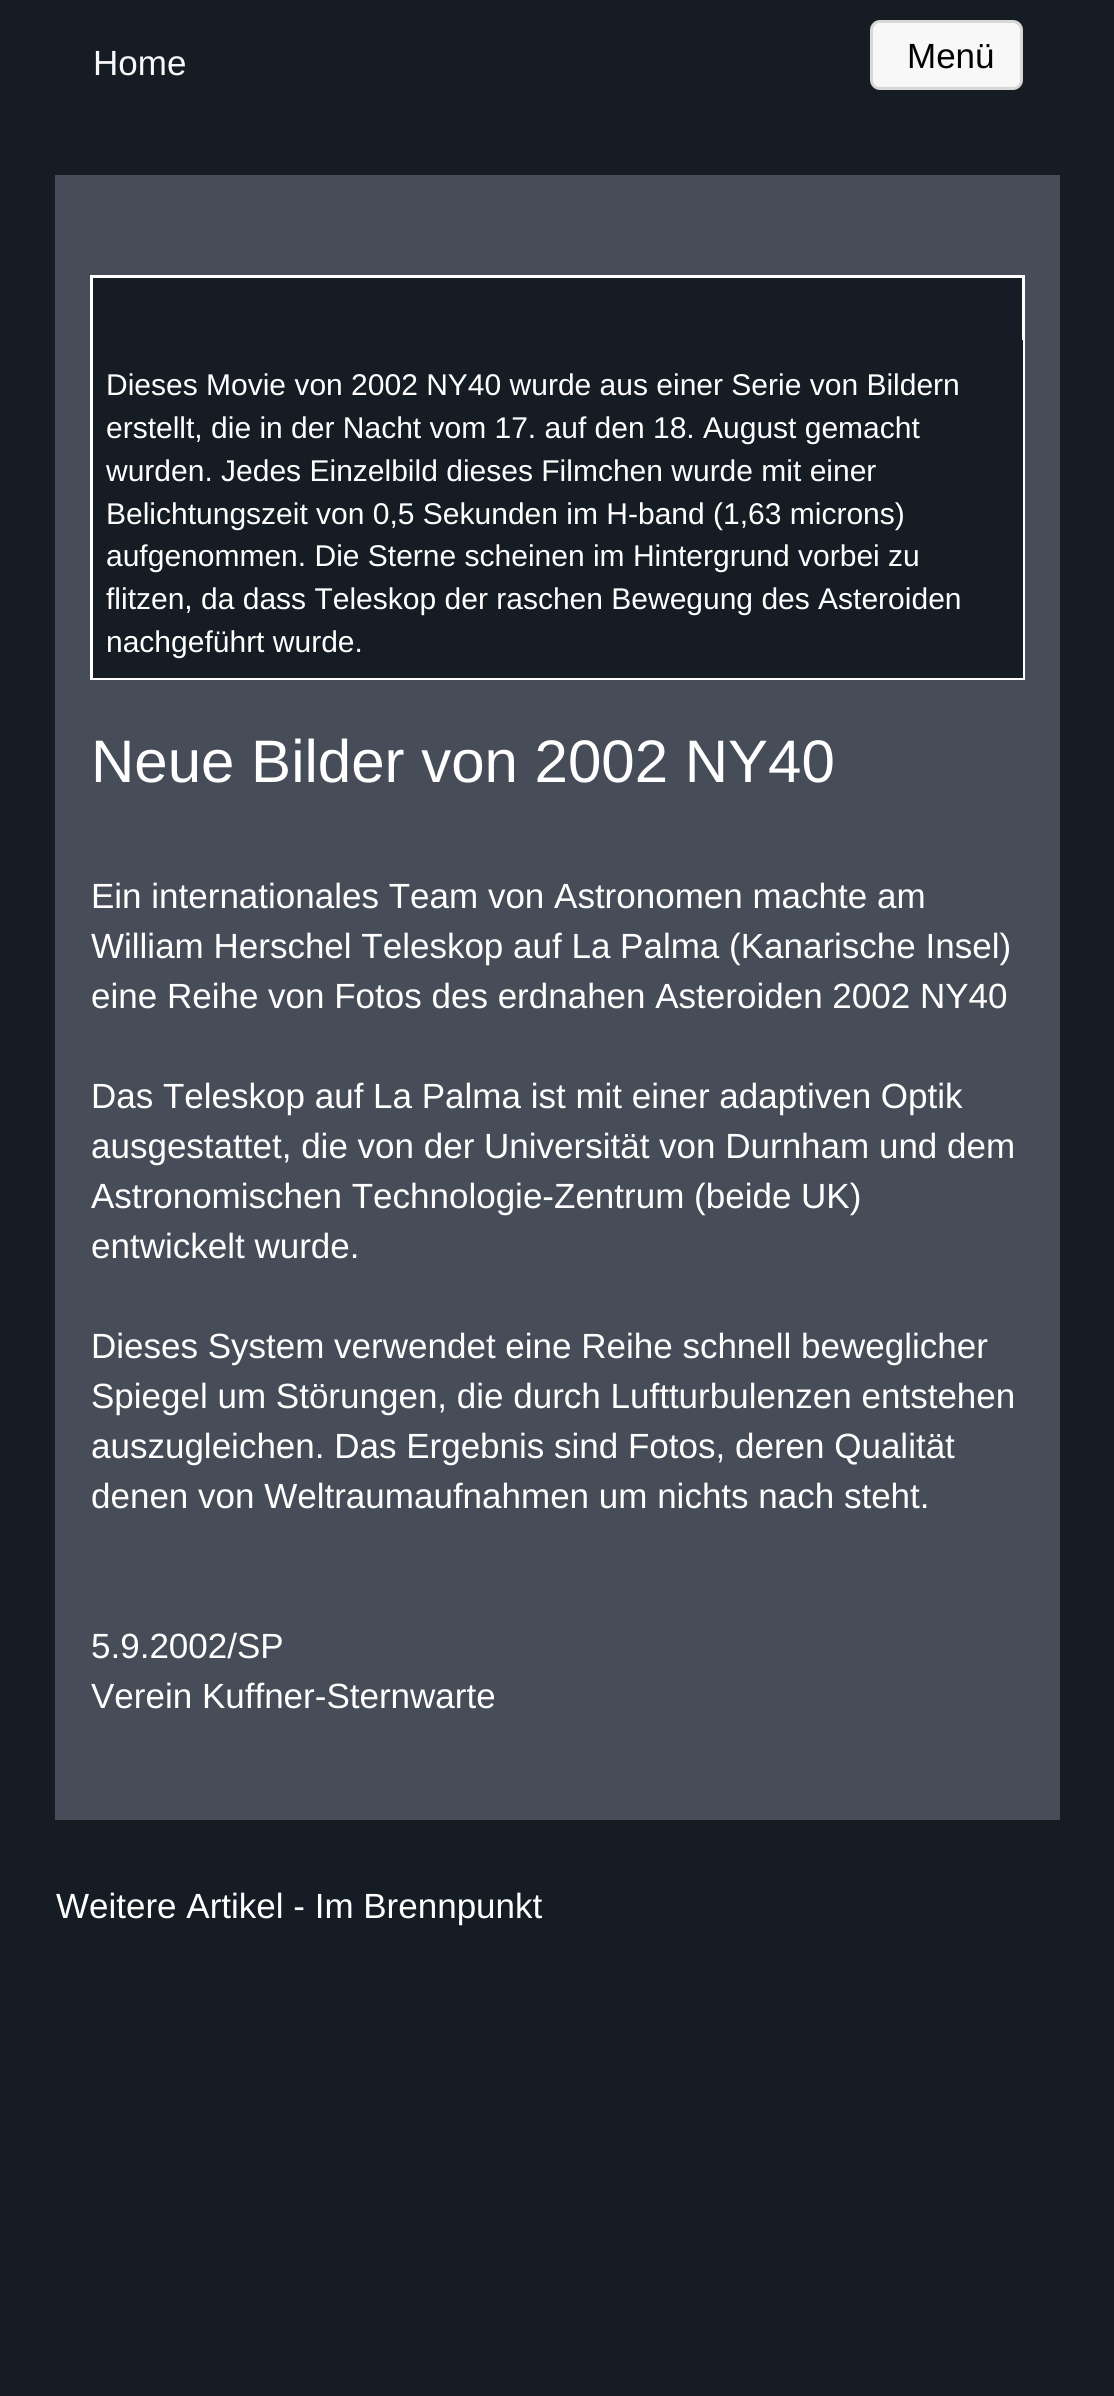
#include <cairo.h>
#include <math.h>
#include <stddef.h>


static void rgb(cairo_t *cr, int r, int g, int b)
{
	cairo_set_source_rgb(cr, r / 255.0, g / 255.0, b / 255.0);
}

static void face(cairo_t *cr, const char *family, double size, int italic, int bold)
{
	cairo_select_font_face(cr, family, italic ? CAIRO_FONT_SLANT_ITALIC : CAIRO_FONT_SLANT_NORMAL,
		bold ? CAIRO_FONT_WEIGHT_BOLD : CAIRO_FONT_WEIGHT_NORMAL);
	cairo_set_font_size(cr, size);
}

static void label(cairo_t *cr, double x, double y, const char *s)
{
	cairo_move_to(cr, x, y);
	cairo_show_text(cr, s);
}

static void rect(cairo_t *cr, double x, double y, double w, double h)
{
	cairo_rectangle(cr, x, y, w, h);
	cairo_fill(cr);
}

static void rrect(cairo_t *cr, double x, double y, double w, double h, double r)
{
	cairo_new_sub_path(cr);
	cairo_arc(cr, x + w - r, y + h - r, r, 0, M_PI / 2);
	cairo_arc(cr, x + r, y + h - r, r, M_PI / 2, M_PI);
	cairo_arc(cr, x + r, y + r, r, M_PI, 1.5 * M_PI);
	cairo_arc(cr, x + w - r, y + r, r, 1.5 * M_PI, 2 * M_PI);
	cairo_close_path(cr);
}

static void draw(cairo_t *cr) {
	rgb(cr, 21, 28, 36);
	cairo_paint(cr);
	face(cr, "Liberation Sans", 35, 0, 0);
	rgb(cr, 248, 248, 248);
	label(cr, 93, 75, "Home");
	rrect(cr, 871.5, 21.5, 150, 67, 8.5);
	cairo_fill_preserve(cr);
	rgb(cr, 215, 215, 215);
	cairo_set_line_width(cr, 3);
	cairo_stroke(cr);
	rgb(cr, 1, 1, 1);
	label(cr, 907, 68, "Menü");
	rgb(cr, 71, 77, 88);
	rect(cr, 55, 175, 1005, 1645);
	rgb(cr, 21, 28, 36);
	rect(cr, 93, 278, 929, 62);
	cairo_rectangle(cr, 91.5, 276.5, 932, 402);
	rgb(cr, 255, 255, 255);
	cairo_stroke(cr);
	rgb(cr, 21, 28, 36);
	rect(cr, 93, 340, 930, 338);
	face(cr, "Liberation Sans", 30, 0, 0);
	rgb(cr, 255, 255, 255);
	label(cr, 106, 395, "Dieses Movie von 2002 NY40 wurde aus einer Serie von Bildern");
	label(cr, 106, 438, "erstellt, die in der Nacht vom 17. auf den 18. August gemacht");
	label(cr, 106, 481, "wurden. Jedes Einzelbild dieses Filmchen wurde mit einer");
	label(cr, 106, 524, "Belichtungszeit von 0,5 Sekunden im H-band (1,63 microns)");
	label(cr, 106, 566, "aufgenommen. Die Sterne scheinen im Hintergrund vorbei zu");
	label(cr, 106, 609, "flitzen, da dass Teleskop der raschen Bewegung des Asteroiden");
	label(cr, 106, 652, "nachgeführt wurde.");
	face(cr, "Liberation Sans", 60, 0, 0);
	label(cr, 91, 782, "Neue Bilder von 2002 NY40");
	face(cr, "Liberation Sans", 35, 0, 0);
	label(cr, 91, 908, "Ein internationales Team von Astronomen machte am");
	label(cr, 91, 958, "William Herschel Teleskop auf La Palma (Kanarische Insel)");
	label(cr, 91, 1008, "eine Reihe von Fotos des erdnahen Asteroiden 2002 NY40");
	label(cr, 91, 1108, "Das Teleskop auf La Palma ist mit einer adaptiven Optik");
	label(cr, 91, 1158, "ausgestattet, die von der Universität von Durnham und dem");
	label(cr, 91, 1208, "Astronomischen Technologie-Zentrum (beide UK)");
	label(cr, 91, 1258, "entwickelt wurde.");
	label(cr, 91, 1358, "Dieses System verwendet eine Reihe schnell beweglicher");
	label(cr, 91, 1408, "Spiegel um Störungen, die durch Luftturbulenzen entstehen");
	label(cr, 91, 1458, "auszugleichen. Das Ergebnis sind Fotos, deren Qualität");
	label(cr, 91, 1508, "denen von Weltraumaufnahmen um nichts nach steht.");
	label(cr, 91, 1658, "5.9.2002/SP");
	label(cr, 91, 1708, "Verein Kuffner-Sternwarte");
	label(cr, 56, 1918, "Weitere Artikel - Im Brennpunkt");
}

int main(void) {
	cairo_surface_t *surface = cairo_image_surface_create(CAIRO_FORMAT_RGB24, 1114, 2396);
	cairo_t *cr = cairo_create(surface);
	cairo_font_options_t *options = cairo_font_options_create();
	cairo_font_options_set_hint_metrics(options, CAIRO_HINT_METRICS_OFF);
	cairo_font_options_set_hint_style(options, CAIRO_HINT_STYLE_NONE);
	cairo_set_font_options(cr, options);
	cairo_set_miter_limit(cr, 4);
	draw(cr);
	cairo_surface_write_to_png(surface, "render.png");
	cairo_font_options_destroy(options);
	cairo_destroy(cr);
	cairo_surface_destroy(surface);
	return 0;
}
